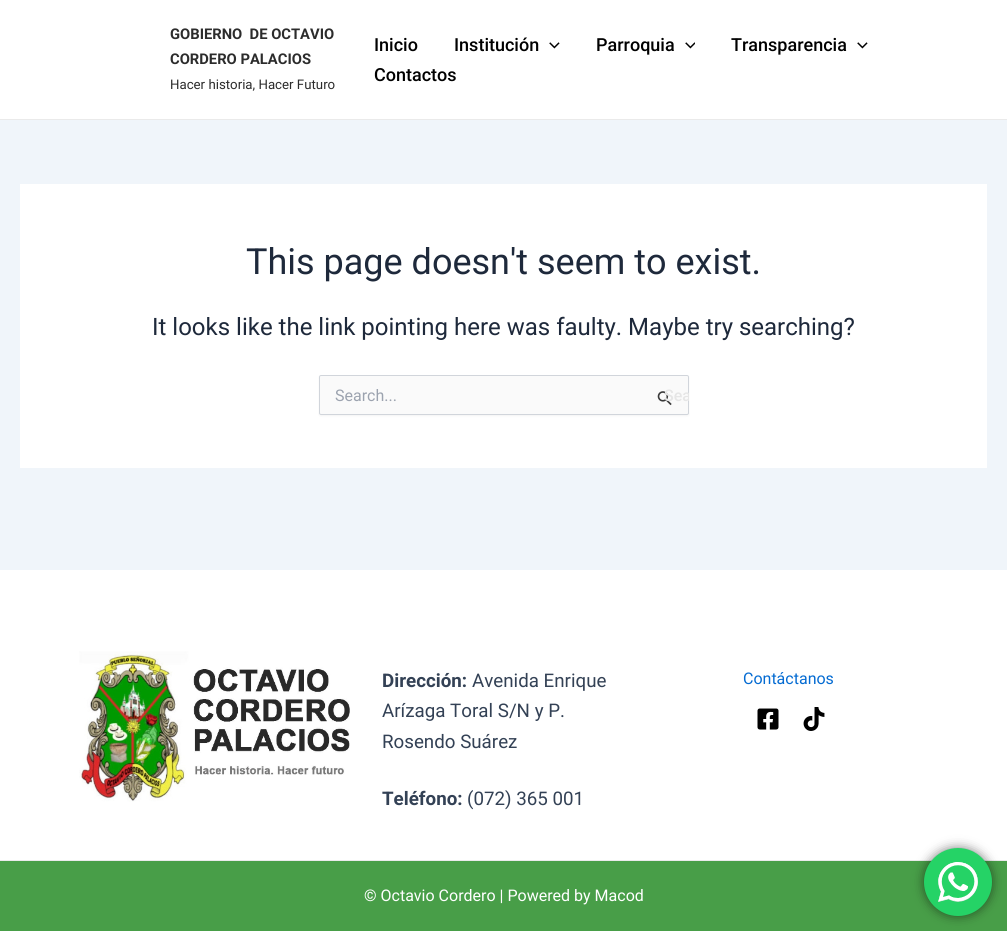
#include <cairo.h>
#include <math.h>
#include <stddef.h>


static void rgb(cairo_t *cr, int r, int g, int b)
{
	cairo_set_source_rgb(cr, r / 255.0, g / 255.0, b / 255.0);
}

static void face(cairo_t *cr, const char *family, double size, int italic, int bold)
{
	cairo_select_font_face(cr, family, italic ? CAIRO_FONT_SLANT_ITALIC : CAIRO_FONT_SLANT_NORMAL,
		bold ? CAIRO_FONT_WEIGHT_BOLD : CAIRO_FONT_WEIGHT_NORMAL);
	cairo_set_font_size(cr, size);
}

static void label(cairo_t *cr, double x, double y, const char *s)
{
	cairo_move_to(cr, x, y);
	cairo_show_text(cr, s);
}

static void rect(cairo_t *cr, double x, double y, double w, double h)
{
	cairo_rectangle(cr, x, y, w, h);
	cairo_fill(cr);
}

static void rrect(cairo_t *cr, double x, double y, double w, double h, double r)
{
	cairo_new_sub_path(cr);
	cairo_arc(cr, x + w - r, y + h - r, r, 0, M_PI / 2);
	cairo_arc(cr, x + r, y + h - r, r, M_PI / 2, M_PI);
	cairo_arc(cr, x + r, y + r, r, M_PI, 1.5 * M_PI);
	cairo_arc(cr, x + w - r, y + r, r, 1.5 * M_PI, 2 * M_PI);
	cairo_close_path(cr);
}

static void soft_shadow(cairo_t *cr, double x, double y, double w, double h, double r, double blur, double alpha)
{
	cairo_push_group_with_content(cr, CAIRO_CONTENT_ALPHA);
	cairo_set_operator(cr, CAIRO_OPERATOR_SOURCE);
	for (int i = 15; i >= -15 && fmin(w, h) + blur * i / 3 > 0; i -= 2) {
		double e = blur * i / 6;
		cairo_set_source_rgba(cr, 0, 0, 0, alpha * erfc((i - 1) / 8.5) / 2);
		rrect(cr, x - e, y - e, w + 2 * e, h + 2 * e, fmax(0, fmin(r + e + blur * .6, fmin(w, h) / 2 + e)));
		cairo_fill(cr);
	}
	cairo_pattern_t *soft = cairo_pop_group(cr);
	cairo_mask(cr, soft);
	cairo_pattern_destroy(soft);
}

static void image(cairo_t *cr, const char *path, double x, double y, double w, double h)
{
	cairo_surface_t *image = cairo_image_surface_create_from_png(path);
	cairo_save(cr);
	cairo_set_source_surface(cr, image, x, y);
	cairo_rectangle(cr, x, y, w, h);
	cairo_fill(cr);
	cairo_restore(cr);
	cairo_surface_destroy(image);
}

static void draw(cairo_t *cr) {
	rgb(cr, 240, 245, 250);
	cairo_paint(cr);
	rgb(cr, 255, 255, 255);
	rect(cr, 0, 0, 1007, 119);
	rgb(cr, 234, 234, 234);
	rect(cr, 0, 119, 1007, 1);
	face(cr, "Roboto", 14.75, 0, 1);
	rgb(cr, 44, 44, 44);
	label(cr, 170, 39, "GOBIERNO  DE OCTAVIO");
	label(cr, 170, 64, "CORDERO PALACIOS");
	face(cr, "Roboto", 13.25, 0, 0);
	label(cr, 170, 89, "Hacer historia, Hacer Futuro");
	face(cr, "Roboto Medium", 18, 0, 0);
	rgb(cr, 0, 0, 0);
	label(cr, 374, 51, "Inicio");
	label(cr, 454, 51, "Institución");
	image(cr, "image0.png", 549, 42, 11, 7);
	label(cr, 596, 51, "Parroquia");
	image(cr, "image1.png", 685, 42, 10, 7);
	label(cr, 731, 51, "Transparencia");
	image(cr, "image0.png", 857, 42, 11, 7);
	label(cr, 374, 81, "Contactos");
	rgb(cr, 255, 255, 255);
	rect(cr, 20, 184, 967, 284);
	face(cr, "Roboto", 36, 0, 0);
	rgb(cr, 30, 41, 59);
	label(cr, 246, 274, "This page doesn't seem to exist.");
	face(cr, "Roboto", 24, 0, 0);
	label(cr, 152, 335, "It looks like the link pointing here was faulty. Maybe try searching?");
	rgb(cr, 0, 0, 0);
	soft_shadow(cr, 319, 376, 370, 40, 2, 1, 0.05);
	rgb(cr, 250, 250, 250);
	rrect(cr, 319.5, 375.5, 369, 39, 1.5);
	cairo_fill_preserve(cr);
	rgb(cr, 209, 213, 219);
	cairo_set_line_width(cr, 1);
	cairo_stroke(cr);
	face(cr, "Roboto", 16, 0, 0);
	rgb(cr, 156, 163, 175);
	label(cr, 335, 401, "Search...");
	image(cr, "image2.png", 657, 391, 15, 15);
	cairo_save(cr);
	rrect(cr, 644, 375, 45, 42, 2);
	cairo_clip(cr);
	face(cr, "Roboto Medium", 16, 0, 0);
	rgb(cr, 230, 230, 230);
	label(cr, 664, 401, "Sea");
	cairo_restore(cr);
	rgb(cr, 255, 255, 255);
	rect(cr, 0, 570, 1007, 290);
	image(cr, "image3.png", 79, 651, 271, 151);
	face(cr, "Roboto", 18.75, 0, 1);
	rgb(cr, 51, 65, 85);
	label(cr, 382, 687, "Dirección:");
	face(cr, "Roboto", 18.75, 0, 0);
	label(cr, 472, 687, "Avenida Enrique");
	label(cr, 382, 717, "Arízaga Toral S/N y P.");
	label(cr, 382, 748, "Rosendo Suárez");
	face(cr, "Roboto", 18.75, 0, 1);
	label(cr, 382, 805, "Teléfono:");
	face(cr, "Roboto", 18.75, 0, 0);
	label(cr, 467, 805, "(072) 365 001");
	face(cr, "Roboto", 16, 0, 0);
	rgb(cr, 4, 107, 210);
	label(cr, 743, 684, "Contáctanos");
	image(cr, "image4.png", 757, 708, 22, 22);
	image(cr, "image5.png", 803, 707, 22, 24);
	rgb(cr, 72, 158, 72);
	rect(cr, 0, 861, 1007, 70);
	rgb(cr, 234, 234, 234);
	rect(cr, 0, 860, 1007, 1);
	rgb(cr, 255, 255, 255);
	label(cr, 364, 901, "© Octavio Cordero | Powered by Macod");
	rgb(cr, 0, 0, 0);
	soft_shadow(cr, 924, 848, 68, 68, 34, 5.5, 0.5);
	rgb(cr, 37, 211, 102);
	cairo_arc(cr, 958, 882, 34, 0, 2 * M_PI);
	cairo_fill(cr);
	image(cr, "image6.png", 938, 862, 40, 40);
}

int main(void) {
	cairo_surface_t *surface = cairo_image_surface_create(CAIRO_FORMAT_RGB24, 1007, 931);
	cairo_t *cr = cairo_create(surface);
	cairo_font_options_t *options = cairo_font_options_create();
	cairo_font_options_set_hint_metrics(options, CAIRO_HINT_METRICS_OFF);
	cairo_font_options_set_hint_style(options, CAIRO_HINT_STYLE_NONE);
	cairo_set_font_options(cr, options);
	cairo_set_miter_limit(cr, 4);
	draw(cr);
	cairo_surface_write_to_png(surface, "render.png");
	cairo_font_options_destroy(options);
	cairo_destroy(cr);
	cairo_surface_destroy(surface);
	return 0;
}
